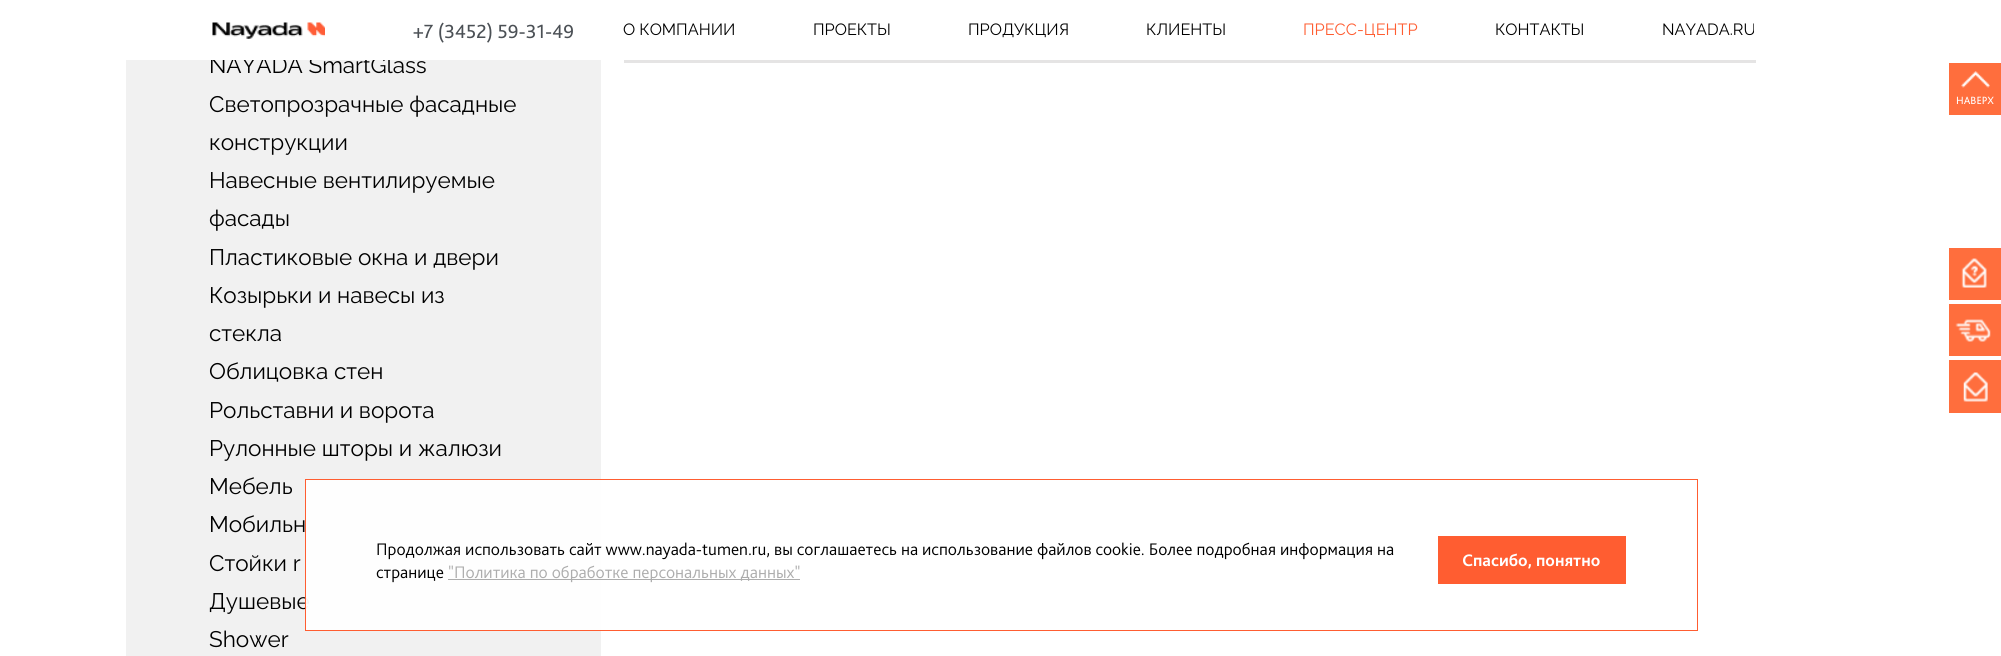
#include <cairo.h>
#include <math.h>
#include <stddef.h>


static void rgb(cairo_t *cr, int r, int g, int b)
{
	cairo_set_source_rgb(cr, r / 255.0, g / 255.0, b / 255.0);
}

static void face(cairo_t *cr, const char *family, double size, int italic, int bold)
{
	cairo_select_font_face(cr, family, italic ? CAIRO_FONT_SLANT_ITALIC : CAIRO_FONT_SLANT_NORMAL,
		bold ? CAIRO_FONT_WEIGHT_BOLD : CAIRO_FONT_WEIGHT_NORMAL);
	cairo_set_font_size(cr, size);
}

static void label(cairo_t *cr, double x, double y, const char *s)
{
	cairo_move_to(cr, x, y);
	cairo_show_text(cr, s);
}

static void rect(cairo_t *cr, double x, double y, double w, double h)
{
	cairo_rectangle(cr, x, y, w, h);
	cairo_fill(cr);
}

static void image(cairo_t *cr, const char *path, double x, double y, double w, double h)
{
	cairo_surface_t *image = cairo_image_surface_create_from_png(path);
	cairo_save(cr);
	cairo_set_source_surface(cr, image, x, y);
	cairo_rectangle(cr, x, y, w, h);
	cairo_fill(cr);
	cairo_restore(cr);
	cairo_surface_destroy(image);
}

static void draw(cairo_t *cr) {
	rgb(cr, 255, 255, 255);
	cairo_paint(cr);
	rgb(cr, 241, 241, 241);
	rect(cr, 126, 60, 475, 596);
	face(cr, "Raleway", 22.5, 0, 0);
	rgb(cr, 0, 0, 0);
	label(cr, 209, 73, "NAYADA SmartGlass");
	rgb(cr, 255, 255, 255);
	rect(cr, 211, 56, 180, 4);
	image(cr, "image0.png", 212, 22, 113, 17);
	face(cr, "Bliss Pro", 20, 0, 0);
	rgb(cr, 75, 80, 85);
	label(cr, 413, 38, "+7 (3452) 59-31-49");
	rgb(cr, 229, 228, 228);
	rect(cr, 624, 60, 1132, 3);
	face(cr, "Raleway", 16.25, 0, 0);
	rgb(cr, 0, 0, 0);
	label(cr, 623, 35, "О КОМПАНИИ");
	label(cr, 813, 35, "ПРОЕКТЫ");
	label(cr, 968, 35, "ПРОДУКЦИЯ");
	label(cr, 1146, 35, "КЛИЕНТЫ");
	rgb(cr, 255, 93, 49);
	label(cr, 1303, 35, "ПРЕСС-ЦЕНТР");
	rgb(cr, 0, 0, 0);
	label(cr, 1495, 35, "КОНТАКТЫ");
	label(cr, 1662, 35, "NAYADA.RU");
	face(cr, "Raleway", 22.5, 0, 0);
	label(cr, 209, 112, "Светопрозрачные фасадные");
	label(cr, 209, 150, "конструкции");
	label(cr, 209, 188, "Навесные вентилируемые");
	label(cr, 209, 226, "фасады");
	label(cr, 209, 265, "Пластиковые окна и двери");
	label(cr, 209, 303, "Козырьки и навесы из");
	label(cr, 209, 341, "стекла");
	label(cr, 209, 379, "Облицовка стен");
	label(cr, 209, 418, "Рольставни и ворота");
	label(cr, 209, 456, "Рулонные шторы и жалюзи");
	label(cr, 209, 494, "Мебель");
	label(cr, 209, 532, "Мобильн");
	label(cr, 209, 571, "Стойки r");
	label(cr, 209, 609, "Душевые");
	label(cr, 209, 647, "Shower");
	rgb(cr, 255, 110, 61);
	rect(cr, 1949, 63, 52, 52);
	image(cr, "image1.png", 1961, 71, 29, 17);
	face(cr, "Bliss Pro", 11, 0, 0);
	rgb(cr, 255, 255, 255);
	label(cr, 1956, 104, "НАВЕРХ");
	rgb(cr, 255, 110, 61);
	rect(cr, 1949, 248, 52, 52);
	image(cr, "image2.png", 1961, 258, 26, 30);
	rect(cr, 1949, 304, 52, 52);
	image(cr, "image3.png", 1955, 319, 36, 23);
	rect(cr, 1949, 360, 52, 53);
	image(cr, "image4.png", 1963, 372, 25, 30);
	cairo_set_source_rgba(cr, 1, 1, 1, 0.95);
	rect(cr, 306, 480, 295, 150);
	cairo_rectangle(cr, 305.5, 479.5, 1392, 151);
	rgb(cr, 255, 93, 49);
	cairo_set_line_width(cr, 1);
	cairo_stroke(cr);
	face(cr, "Bliss Pro Light", 17.5, 0, 0);
	rgb(cr, 0, 0, 0);
	label(cr, 376, 555, "Продолжая использовать сайт www.nayada-tumen.ru, вы соглашаетесь на использование файлов cookie. Более подробная информация на");
	label(cr, 376, 578, "странице");
	rgb(cr, 173, 173, 173);
	rect(cr, 448, 579, 352, 1);
	label(cr, 448, 578, "\"Политика по обработке персональных данных\"");
	rgb(cr, 255, 93, 49);
	rect(cr, 1438, 536, 188, 48);
	face(cr, "Bliss Pro", 17.5, 0, 1);
	rgb(cr, 255, 255, 255);
	label(cr, 1462, 566, "Спасибо, понятно");
}

int main(void) {
	cairo_surface_t *surface = cairo_image_surface_create(CAIRO_FORMAT_RGB24, 2001, 656);
	cairo_t *cr = cairo_create(surface);
	cairo_font_options_t *options = cairo_font_options_create();
	cairo_font_options_set_hint_metrics(options, CAIRO_HINT_METRICS_OFF);
	cairo_font_options_set_hint_style(options, CAIRO_HINT_STYLE_NONE);
	cairo_set_font_options(cr, options);
	cairo_set_miter_limit(cr, 4);
	draw(cr);
	cairo_surface_write_to_png(surface, "render.png");
	cairo_font_options_destroy(options);
	cairo_destroy(cr);
	cairo_surface_destroy(surface);
	return 0;
}
